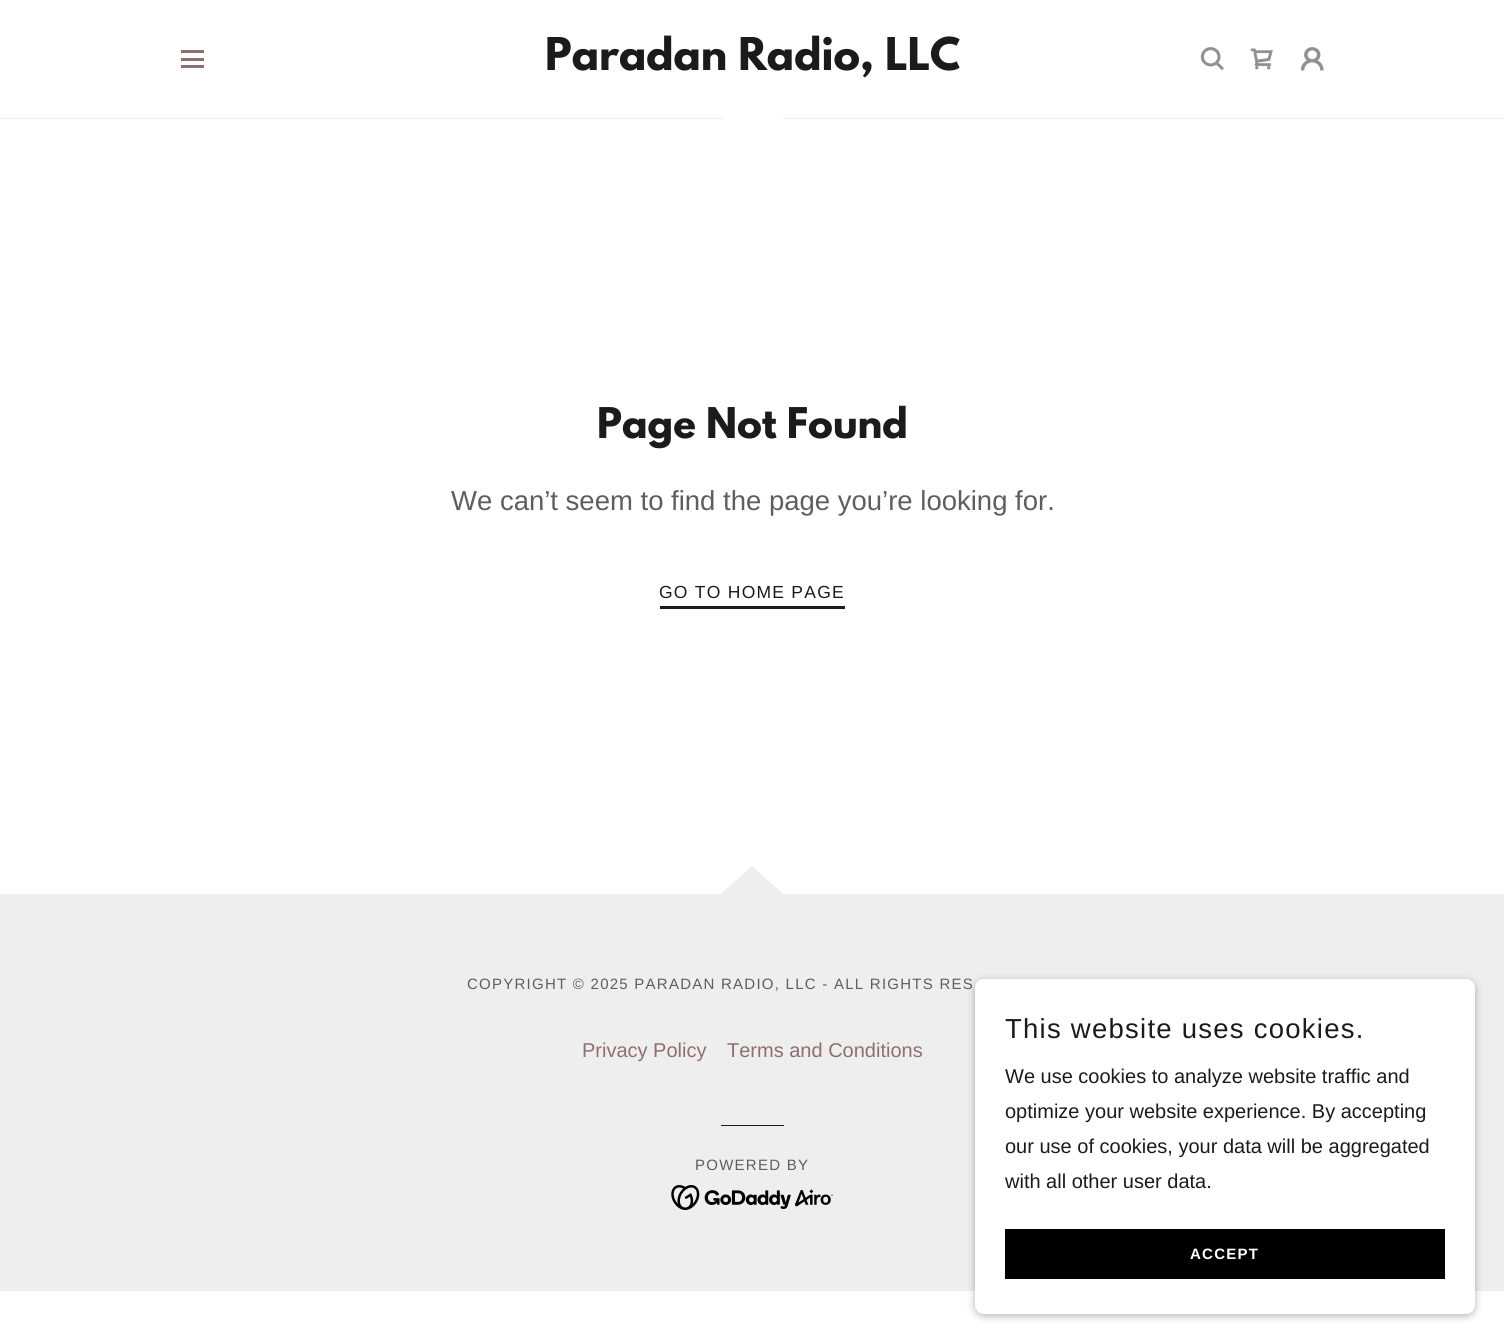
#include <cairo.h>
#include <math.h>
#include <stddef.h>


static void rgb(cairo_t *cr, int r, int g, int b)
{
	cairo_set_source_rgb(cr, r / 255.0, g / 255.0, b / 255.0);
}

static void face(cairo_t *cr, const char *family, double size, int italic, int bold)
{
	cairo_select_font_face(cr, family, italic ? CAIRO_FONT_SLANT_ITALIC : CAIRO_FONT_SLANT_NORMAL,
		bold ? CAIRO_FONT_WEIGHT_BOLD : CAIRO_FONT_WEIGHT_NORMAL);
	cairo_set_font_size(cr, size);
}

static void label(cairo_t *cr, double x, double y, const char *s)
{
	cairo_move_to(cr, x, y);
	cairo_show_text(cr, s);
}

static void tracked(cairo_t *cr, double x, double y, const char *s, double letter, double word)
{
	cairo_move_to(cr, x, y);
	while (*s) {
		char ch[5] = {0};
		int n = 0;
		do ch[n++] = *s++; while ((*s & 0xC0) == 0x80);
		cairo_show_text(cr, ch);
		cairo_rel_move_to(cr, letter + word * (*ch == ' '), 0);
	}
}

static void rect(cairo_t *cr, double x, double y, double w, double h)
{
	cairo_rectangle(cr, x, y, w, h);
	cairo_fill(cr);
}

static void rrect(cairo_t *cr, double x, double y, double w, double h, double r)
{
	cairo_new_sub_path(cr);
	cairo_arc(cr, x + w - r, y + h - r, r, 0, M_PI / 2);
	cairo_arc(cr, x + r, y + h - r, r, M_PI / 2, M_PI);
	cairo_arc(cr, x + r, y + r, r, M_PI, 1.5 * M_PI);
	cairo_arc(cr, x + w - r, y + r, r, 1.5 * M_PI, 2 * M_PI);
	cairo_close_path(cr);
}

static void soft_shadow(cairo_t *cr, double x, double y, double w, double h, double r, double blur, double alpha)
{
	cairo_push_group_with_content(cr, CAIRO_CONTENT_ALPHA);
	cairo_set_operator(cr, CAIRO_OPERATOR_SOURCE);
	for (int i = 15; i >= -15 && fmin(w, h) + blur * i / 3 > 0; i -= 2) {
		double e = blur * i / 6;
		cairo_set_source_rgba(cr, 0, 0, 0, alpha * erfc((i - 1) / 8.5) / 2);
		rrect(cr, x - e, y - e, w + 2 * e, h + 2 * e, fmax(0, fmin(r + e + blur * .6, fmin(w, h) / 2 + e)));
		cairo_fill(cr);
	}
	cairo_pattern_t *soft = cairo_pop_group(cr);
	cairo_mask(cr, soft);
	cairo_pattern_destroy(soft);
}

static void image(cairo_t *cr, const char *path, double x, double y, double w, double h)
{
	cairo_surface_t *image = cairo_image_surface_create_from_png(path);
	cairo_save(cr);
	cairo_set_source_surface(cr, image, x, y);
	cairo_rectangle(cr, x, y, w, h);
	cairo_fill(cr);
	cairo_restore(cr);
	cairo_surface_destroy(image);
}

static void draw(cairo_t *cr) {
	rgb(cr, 255, 255, 255);
	cairo_paint(cr);
	rgb(cr, 239, 239, 239);
	rect(cr, 0, 118, 1504, 1);
	rgb(cr, 143, 110, 110);
	rect(cr, 181, 50, 23, 3);
	rect(cr, 181, 58, 23, 3);
	rect(cr, 181, 65, 23, 3);
	face(cr, "League Spartan", 40, 0, 1);
	rgb(cr, 27, 27, 27);
	label(cr, 545, 70, "Paradan Radio, LLC");
	image(cr, "image0.png", 1200, 47, 24, 24);
	image(cr, "image1.png", 1250, 48, 23, 22);
	image(cr, "image2.png", 1300, 47, 24, 24);
	rgb(cr, 255, 255, 255);
	cairo_set_fill_rule(cr, CAIRO_FILL_RULE_EVEN_ODD);
	cairo_new_path(cr);
	cairo_move_to(cr, 753, 146);
	cairo_line_to(cr, 786, 116);
	cairo_line_to(cr, 720, 116);
	cairo_close_path(cr);
	cairo_fill(cr);
	face(cr, "League Spartan", 37.5, 0, 1);
	rgb(cr, 27, 27, 27);
	label(cr, 597, 438, "Page Not Found");
	face(cr, "Liberation Sans", 27.5, 0, 0);
	rgb(cr, 94, 94, 94);
	label(cr, 451, 510, "We can’t seem to find the page you’re looking for.");
	rgb(cr, 27, 27, 27);
	rect(cr, 660, 606, 185, 3);
	face(cr, "Liberation Sans", 17.5, 0, 0);
	tracked(cr, 659, 598, "GO TO HOME PAGE", 1.25, 0);
	rgb(cr, 238, 238, 238);
	rect(cr, 0, 894, 1504, 397);
	cairo_save(cr);
	cairo_set_fill_rule(cr, CAIRO_FILL_RULE_WINDING);
	cairo_rectangle(cr, 720, 865, 66, 30);
	cairo_clip(cr);
	cairo_set_fill_rule(cr, CAIRO_FILL_RULE_EVEN_ODD);
	cairo_new_path(cr);
	cairo_move_to(cr, 752, 866);
	cairo_line_to(cr, 719, 896);
	cairo_line_to(cr, 785, 896);
	cairo_close_path(cr);
	cairo_fill(cr);
	cairo_restore(cr);
	face(cr, "Liberation Sans", 15, 0, 0);
	rgb(cr, 94, 94, 94);
	tracked(cr, 467, 989, "COPYRIGHT © 2025 PARADAN RADIO, LLC - ALL RIGHTS RES", 1.25, 0);
	face(cr, "Liberation Sans", 20, 0, 0);
	rgb(cr, 143, 110, 110);
	label(cr, 582, 1057, "Privacy Policy");
	label(cr, 727, 1057, "Terms and Conditions");
	rgb(cr, 27, 27, 27);
	rect(cr, 721, 1125, 63, 1);
	face(cr, "Liberation Sans", 15, 0, 0);
	rgb(cr, 94, 94, 94);
	tracked(cr, 695, 1170, "POWERED BY", 1.25, 0);
	image(cr, "image3.png", 671, 1185, 162, 25);
	rgb(cr, 0, 0, 0);
	soft_shadow(cr, 975, 981, 500, 335, 9, 4, 0.3);
	rgb(cr, 255, 255, 255);
	rrect(cr, 975, 979, 500, 335, 9);
	cairo_fill(cr);
	face(cr, "Liberation Sans", 27.5, 0, 0);
	rgb(cr, 27, 27, 27);
	tracked(cr, 1005, 1038, "This website uses cookies.", 1.25, 0);
	face(cr, "Liberation Sans", 20, 0, 0);
	label(cr, 1005, 1083, "We use cookies to analyze website traffic and");
	label(cr, 1005, 1118, "optimize your website experience. By accepting");
	label(cr, 1005, 1153, "our use of cookies, your data will be aggregated");
	label(cr, 1005, 1188, "with all other user data.");
	rgb(cr, 0, 0, 0);
	rect(cr, 1005, 1229, 440, 50);
	face(cr, "Liberation Sans", 15, 0, 1);
	rgb(cr, 255, 255, 255);
	tracked(cr, 1190, 1259, "ACCEPT", 1.25, 0);
}

int main(void) {
	cairo_surface_t *surface = cairo_image_surface_create(CAIRO_FORMAT_RGB24, 1504, 1343);
	cairo_t *cr = cairo_create(surface);
	cairo_font_options_t *options = cairo_font_options_create();
	cairo_font_options_set_hint_metrics(options, CAIRO_HINT_METRICS_OFF);
	cairo_font_options_set_hint_style(options, CAIRO_HINT_STYLE_NONE);
	cairo_set_font_options(cr, options);
	cairo_set_miter_limit(cr, 4);
	draw(cr);
	cairo_surface_write_to_png(surface, "render.png");
	cairo_font_options_destroy(options);
	cairo_destroy(cr);
	cairo_surface_destroy(surface);
	return 0;
}
